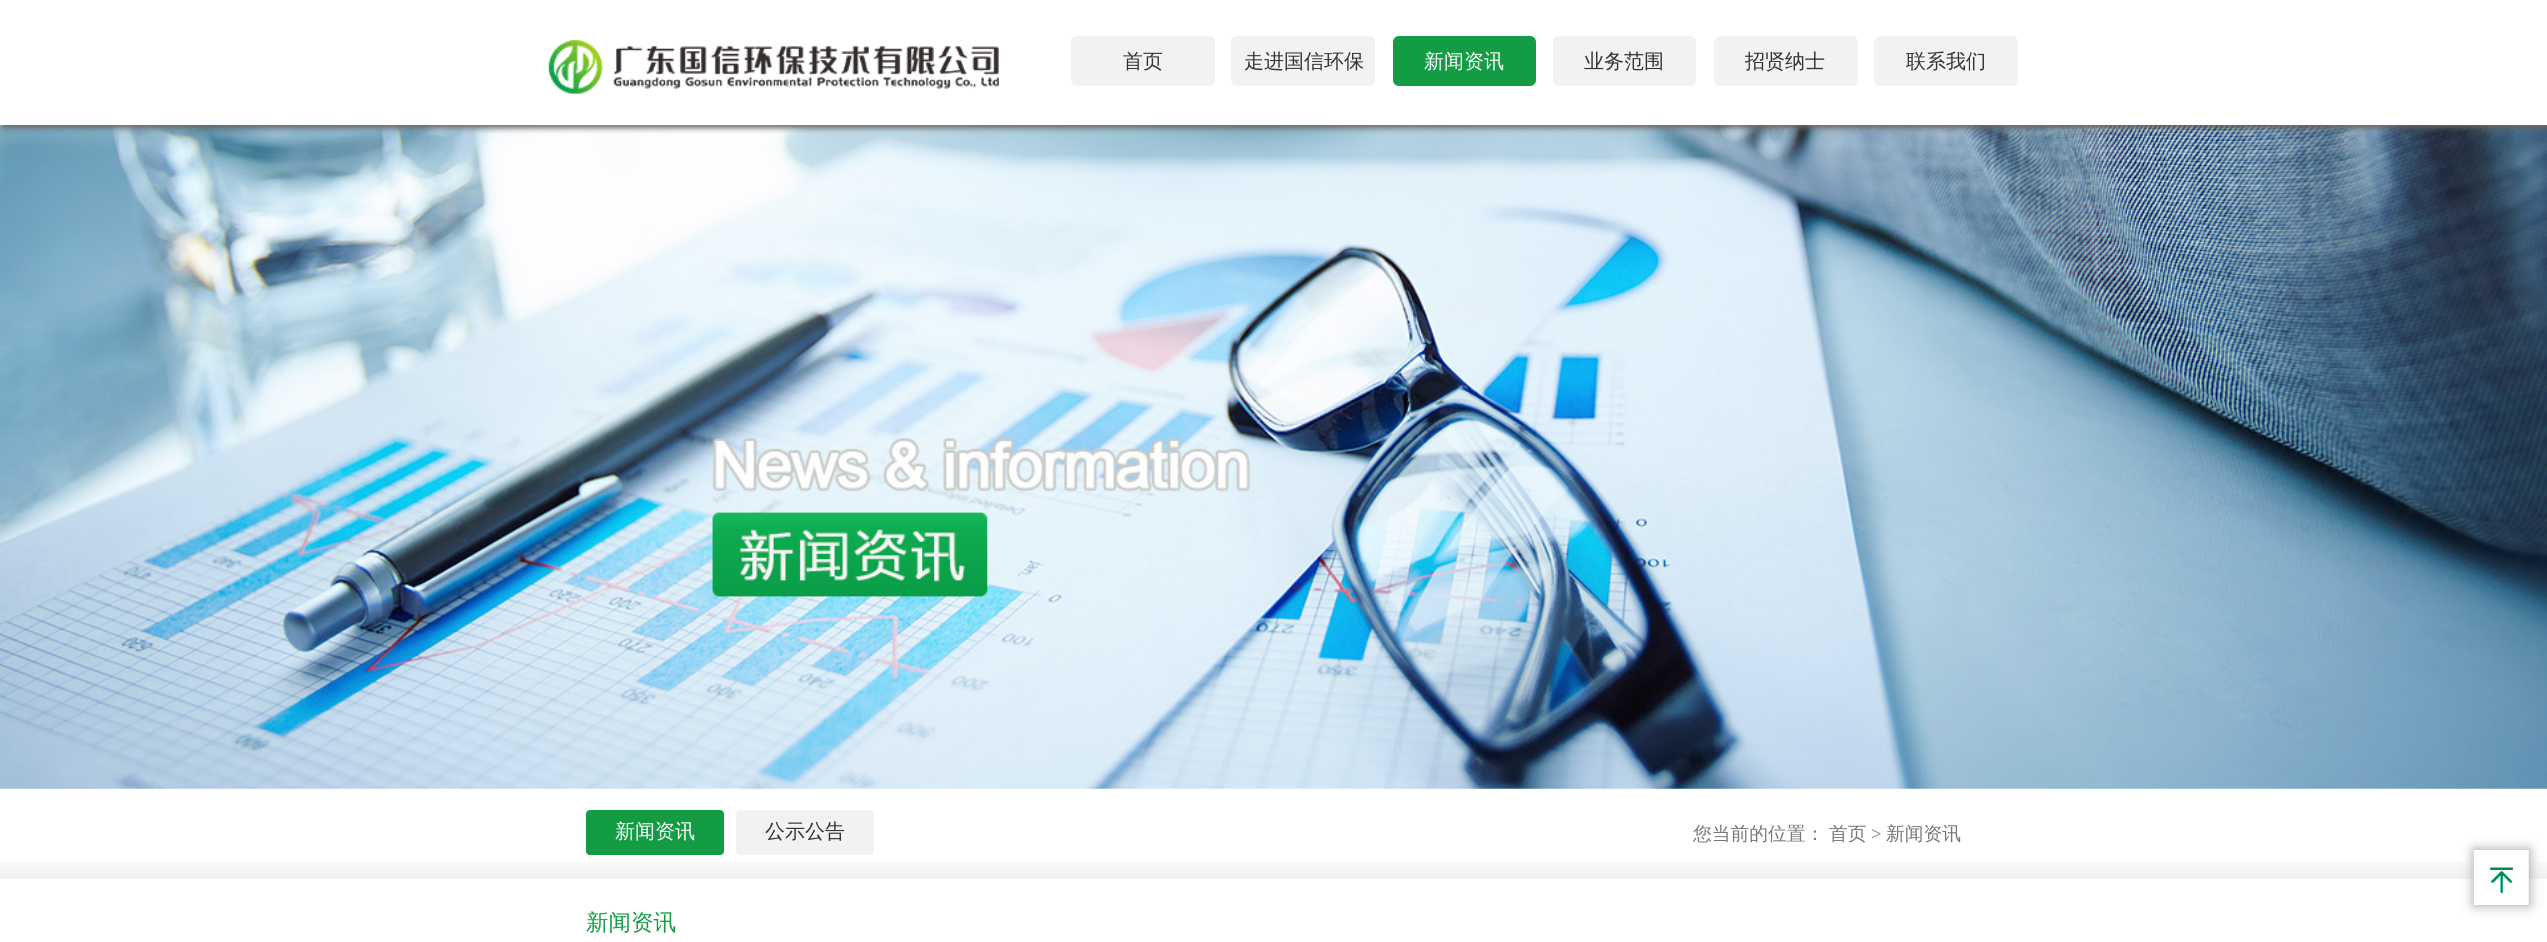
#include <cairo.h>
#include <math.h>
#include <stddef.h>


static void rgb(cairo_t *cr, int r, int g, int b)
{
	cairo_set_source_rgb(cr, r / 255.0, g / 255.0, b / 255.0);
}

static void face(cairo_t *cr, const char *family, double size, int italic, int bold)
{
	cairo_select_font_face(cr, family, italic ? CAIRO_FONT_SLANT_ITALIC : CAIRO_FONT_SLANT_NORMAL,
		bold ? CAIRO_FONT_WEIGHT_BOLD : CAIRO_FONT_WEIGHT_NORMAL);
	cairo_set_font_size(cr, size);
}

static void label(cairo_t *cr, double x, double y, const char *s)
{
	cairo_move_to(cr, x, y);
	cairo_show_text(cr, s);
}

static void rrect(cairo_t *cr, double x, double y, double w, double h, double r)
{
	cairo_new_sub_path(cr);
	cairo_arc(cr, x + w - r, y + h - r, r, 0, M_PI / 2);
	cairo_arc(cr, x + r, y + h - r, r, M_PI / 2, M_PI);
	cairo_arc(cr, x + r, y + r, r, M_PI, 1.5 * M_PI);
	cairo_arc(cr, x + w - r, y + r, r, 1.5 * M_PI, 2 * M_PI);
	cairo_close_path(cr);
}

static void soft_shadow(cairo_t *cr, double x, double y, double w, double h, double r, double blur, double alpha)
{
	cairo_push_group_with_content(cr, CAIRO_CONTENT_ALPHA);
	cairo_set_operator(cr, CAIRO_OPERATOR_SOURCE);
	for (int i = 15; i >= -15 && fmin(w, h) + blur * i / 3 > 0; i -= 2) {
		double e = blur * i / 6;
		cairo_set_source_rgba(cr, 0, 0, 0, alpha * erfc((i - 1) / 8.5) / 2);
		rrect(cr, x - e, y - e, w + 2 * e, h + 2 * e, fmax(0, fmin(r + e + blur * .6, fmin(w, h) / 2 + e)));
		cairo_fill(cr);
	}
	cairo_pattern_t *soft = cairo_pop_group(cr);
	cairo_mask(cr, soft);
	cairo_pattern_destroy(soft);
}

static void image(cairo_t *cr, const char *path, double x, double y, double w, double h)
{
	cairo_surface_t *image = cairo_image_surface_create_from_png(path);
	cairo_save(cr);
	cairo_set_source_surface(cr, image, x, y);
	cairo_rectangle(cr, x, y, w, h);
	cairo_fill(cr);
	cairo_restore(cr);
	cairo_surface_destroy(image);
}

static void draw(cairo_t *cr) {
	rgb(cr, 255, 255, 255);
	cairo_paint(cr);
	image(cr, "image1.png", 0, 125, 2547, 664);
	cairo_save(cr);
	cairo_rectangle(cr, 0, 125, 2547, 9);
	cairo_clip(cr);
	rgb(cr, 102, 102, 102);
	soft_shadow(cr, 3, 3, 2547, 125, 0, 3, 1);
	cairo_restore(cr);
	image(cr, "image0.png", 548, 40, 451, 54);
	rgb(cr, 242, 242, 242);
	rrect(cr, 1071, 36, 144, 50, 6);
	cairo_fill(cr);
	face(cr, "WenQuanYi Zen Hei Medium", 20, 0, 0);
	rgb(cr, 51, 51, 51);
	label(cr, 1123, 68, "首页");
	rgb(cr, 242, 242, 242);
	rrect(cr, 1231, 36, 144, 50, 6);
	cairo_fill(cr);
	rgb(cr, 51, 51, 51);
	label(cr, 1244, 68, "走进国信环保");
	rgb(cr, 19, 156, 68);
	rrect(cr, 1393, 36, 143, 50, 6);
	cairo_fill(cr);
	rgb(cr, 255, 255, 255);
	label(cr, 1424, 68, "新闻资讯");
	rgb(cr, 242, 242, 242);
	rrect(cr, 1553, 36, 143, 50, 6);
	cairo_fill(cr);
	rgb(cr, 51, 51, 51);
	label(cr, 1584, 68, "业务范围");
	rgb(cr, 242, 242, 242);
	rrect(cr, 1714, 36, 144, 50, 6);
	cairo_fill(cr);
	rgb(cr, 51, 51, 51);
	label(cr, 1745, 68, "招贤纳士");
	rgb(cr, 242, 242, 242);
	rrect(cr, 1874, 36, 144, 50, 6);
	cairo_fill(cr);
	rgb(cr, 51, 51, 51);
	label(cr, 1906, 68, "联系我们");
	rgb(cr, 19, 156, 68);
	rrect(cr, 586, 810, 138, 45, 4);
	cairo_fill(cr);
	rgb(cr, 255, 255, 255);
	label(cr, 615, 838, "新闻资讯");
	rgb(cr, 242, 242, 242);
	rrect(cr, 736, 810, 138, 45, 4);
	cairo_fill(cr);
	rgb(cr, 51, 51, 51);
	label(cr, 765, 838, "公示公告");
	face(cr, "WenQuanYi Zen Hei Medium", 22.5, 0, 0);
	rgb(cr, 19, 156, 68);
	label(cr, 586, 930, "新闻资讯");
	image(cr, "image2.png", 0, 861, 2547, 18);
	face(cr, "WenQuanYi Zen Hei Medium", 18.75, 0, 0);
	rgb(cr, 119, 119, 119);
	label(cr, 1693, 840, "您当前的位置：");
	label(cr, 1829, 840, "首页");
	face(cr, "Liberation Serif", 18.75, 0, 0);
	label(cr, 1871, 840, ">");
	face(cr, "WenQuanYi Zen Hei Medium", 18.75, 0, 0);
	label(cr, 1886, 840, "新闻资讯");
	rgb(cr, 156, 156, 156);
	soft_shadow(cr, 2474, 850, 55, 55, 0, 6, 1);
	image(cr, "image3.png", 2473, 850, 56, 55);
}

int main(void) {
	cairo_surface_t *surface = cairo_image_surface_create(CAIRO_FORMAT_RGB24, 2547, 942);
	cairo_t *cr = cairo_create(surface);
	cairo_font_options_t *options = cairo_font_options_create();
	cairo_font_options_set_hint_metrics(options, CAIRO_HINT_METRICS_OFF);
	cairo_font_options_set_hint_style(options, CAIRO_HINT_STYLE_NONE);
	cairo_set_font_options(cr, options);
	cairo_set_miter_limit(cr, 4);
	draw(cr);
	cairo_surface_write_to_png(surface, "render.png");
	cairo_font_options_destroy(options);
	cairo_destroy(cr);
	cairo_surface_destroy(surface);
	return 0;
}
